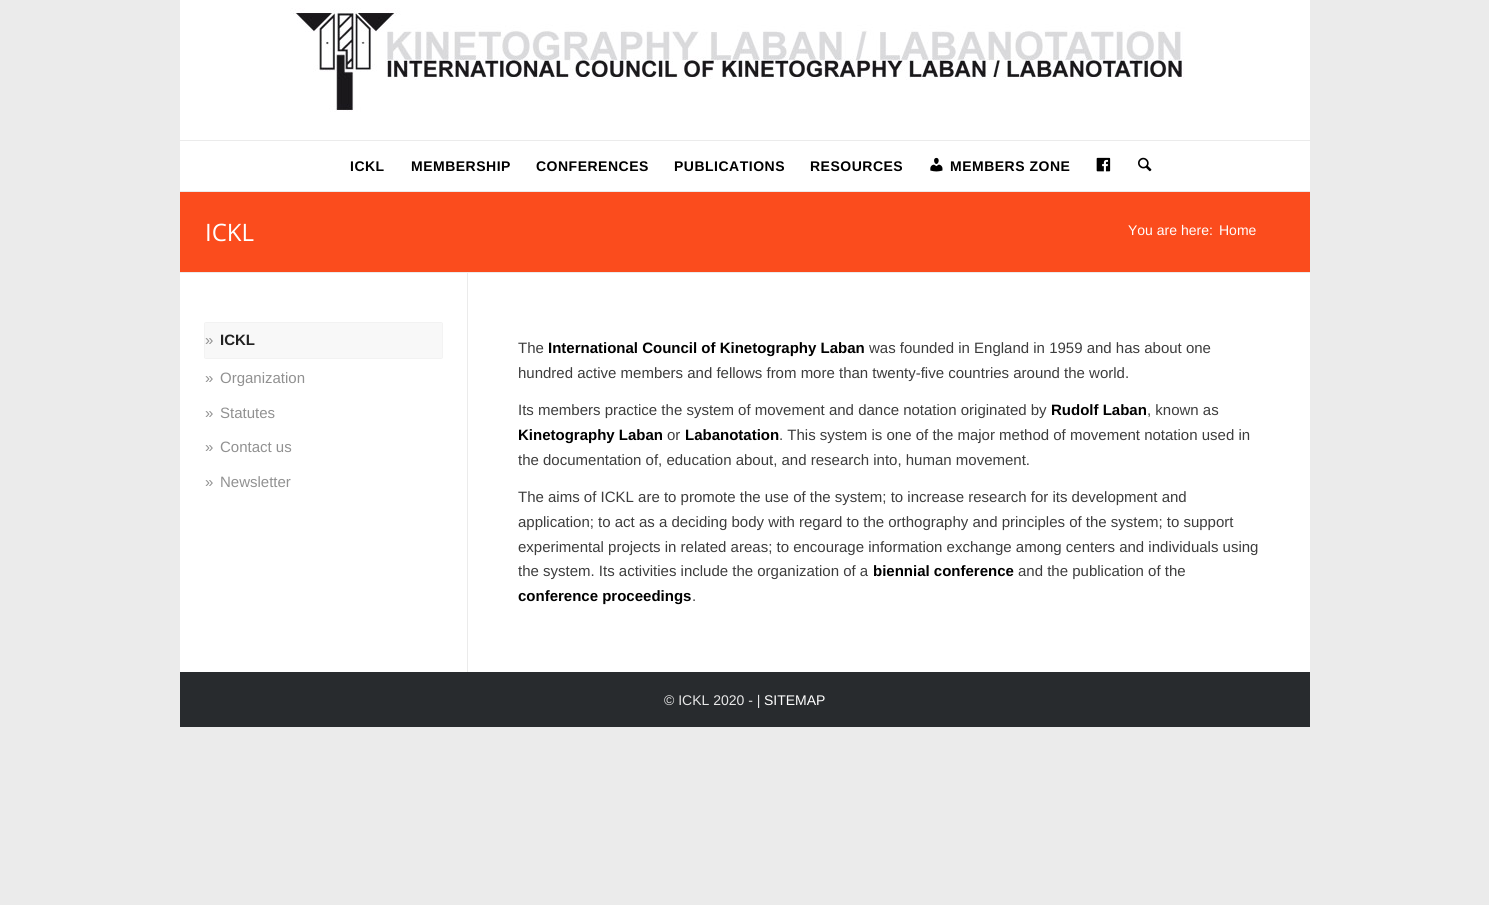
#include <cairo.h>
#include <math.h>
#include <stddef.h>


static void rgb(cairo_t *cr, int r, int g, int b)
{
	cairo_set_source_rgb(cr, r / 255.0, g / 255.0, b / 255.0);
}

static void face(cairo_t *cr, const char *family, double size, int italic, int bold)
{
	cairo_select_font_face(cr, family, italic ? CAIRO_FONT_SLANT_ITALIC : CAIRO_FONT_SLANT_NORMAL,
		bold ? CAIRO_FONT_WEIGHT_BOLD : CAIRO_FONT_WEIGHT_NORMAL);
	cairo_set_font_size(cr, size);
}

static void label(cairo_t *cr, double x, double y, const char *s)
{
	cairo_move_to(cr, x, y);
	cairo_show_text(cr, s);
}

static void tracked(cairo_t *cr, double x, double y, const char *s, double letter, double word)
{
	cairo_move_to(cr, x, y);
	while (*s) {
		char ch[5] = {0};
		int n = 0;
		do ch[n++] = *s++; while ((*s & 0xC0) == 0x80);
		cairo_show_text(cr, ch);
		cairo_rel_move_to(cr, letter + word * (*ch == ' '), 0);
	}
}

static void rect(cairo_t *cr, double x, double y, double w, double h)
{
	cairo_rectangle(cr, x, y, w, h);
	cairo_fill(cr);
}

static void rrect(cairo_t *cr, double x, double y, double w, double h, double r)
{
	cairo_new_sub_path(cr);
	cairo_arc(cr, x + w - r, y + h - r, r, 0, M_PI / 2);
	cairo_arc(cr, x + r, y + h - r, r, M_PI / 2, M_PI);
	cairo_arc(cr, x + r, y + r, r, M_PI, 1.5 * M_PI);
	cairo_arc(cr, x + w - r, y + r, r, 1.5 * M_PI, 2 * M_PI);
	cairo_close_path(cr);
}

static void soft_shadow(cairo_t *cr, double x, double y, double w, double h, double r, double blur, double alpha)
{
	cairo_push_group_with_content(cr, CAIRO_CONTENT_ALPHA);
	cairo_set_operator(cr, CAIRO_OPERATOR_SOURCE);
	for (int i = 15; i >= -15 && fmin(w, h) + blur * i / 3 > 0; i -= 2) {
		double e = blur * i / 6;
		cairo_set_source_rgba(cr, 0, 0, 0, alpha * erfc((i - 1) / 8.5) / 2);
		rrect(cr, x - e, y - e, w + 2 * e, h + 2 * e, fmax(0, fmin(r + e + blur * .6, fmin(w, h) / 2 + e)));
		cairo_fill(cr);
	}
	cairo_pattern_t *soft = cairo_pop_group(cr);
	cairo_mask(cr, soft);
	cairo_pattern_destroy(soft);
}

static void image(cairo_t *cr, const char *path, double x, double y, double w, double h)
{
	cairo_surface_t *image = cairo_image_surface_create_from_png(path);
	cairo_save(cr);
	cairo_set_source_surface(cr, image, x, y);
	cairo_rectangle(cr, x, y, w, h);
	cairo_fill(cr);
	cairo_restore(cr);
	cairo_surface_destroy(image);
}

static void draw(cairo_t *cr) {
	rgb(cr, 235, 235, 235);
	cairo_paint(cr);
	rgb(cr, 255, 255, 255);
	rect(cr, 180, 0, 1130, 191);
	image(cr, "image0.png", 290, 8, 895, 104);
	rgb(cr, 235, 235, 235);
	rect(cr, 180, 140, 1130, 1);
	face(cr, "Liberation Sans", 14, 0, 1);
	rgb(cr, 0, 0, 0);
	tracked(cr, 350, 171, "ICKL", 0.5, 0);
	tracked(cr, 411, 171, "MEMBERSHIP", 0.5, 0);
	tracked(cr, 536, 171, "CONFERENCES", 0.5, 0);
	tracked(cr, 674, 171, "PUBLICATIONS", 0.5, 0);
	tracked(cr, 810, 171, "RESOURCES", 0.5, 0);
	image(cr, "image1.png", 930, 157, 13, 15);
	tracked(cr, 950, 171, "MEMBERS ZONE", 0.5, 0);
	image(cr, "image2.png", 1096, 157, 15, 15);
	image(cr, "image3.png", 1138, 157, 14, 15);
	rgb(cr, 255, 255, 255);
	rect(cr, 180, 273, 1130, 399);
	rgb(cr, 251, 76, 29);
	rect(cr, 180, 192, 1130, 80);
	face(cr, "Open Sans", 24, 0, 0);
	rgb(cr, 255, 255, 255);
	label(cr, 205, 241, "ICKL");
	face(cr, "Liberation Sans", 14, 0, 0);
	label(cr, 1128, 235, "You are here:");
	label(cr, 1219, 235, "Home");
	rgb(cr, 0, 0, 0);
	soft_shadow(cr, 205, 323, 237, 35, 0, 0.5, 0.2);
	rgb(cr, 248, 248, 248);
	rect(cr, 205, 323, 237, 35);
	face(cr, "Liberation Sans", 15, 0, 0);
	rgb(cr, 145, 145, 145);
	label(cr, 205, 345, "»");
	face(cr, "Liberation Sans", 15, 0, 1);
	rgb(cr, 34, 34, 34);
	label(cr, 220, 345, "ICKL");
	face(cr, "Liberation Sans", 15, 0, 0);
	rgb(cr, 145, 145, 145);
	label(cr, 205, 383, "»");
	label(cr, 220, 383, "Organization");
	label(cr, 205, 418, "»");
	label(cr, 220, 418, "Statutes");
	label(cr, 205, 452, "»");
	label(cr, 220, 452, "Contact us");
	label(cr, 205, 487, "»");
	label(cr, 220, 487, "Newsletter");
	rgb(cr, 235, 235, 235);
	rect(cr, 467, 273, 1, 399);
	rgb(cr, 61, 61, 61);
	label(cr, 518, 353, "The");
	face(cr, "Liberation Sans", 15, 0, 1);
	rgb(cr, 0, 0, 0);
	label(cr, 548, 353, "International Council of Kinetography Laban");
	face(cr, "Liberation Sans", 15, 0, 0);
	rgb(cr, 61, 61, 61);
	label(cr, 869, 353, "was founded in England in 1959 and has about one");
	label(cr, 518, 378, "hundred active members and fellows from more than twenty-five countries around the world.");
	label(cr, 518, 415, "Its members practice the system of movement and dance notation originated by");
	face(cr, "Liberation Sans", 15, 0, 1);
	rgb(cr, 0, 0, 0);
	label(cr, 1051, 415, "Rudolf Laban");
	face(cr, "Liberation Sans", 15, 0, 0);
	rgb(cr, 61, 61, 61);
	label(cr, 1147, 415, ", known as");
	face(cr, "Liberation Sans", 15, 0, 1);
	rgb(cr, 0, 0, 0);
	label(cr, 518, 440, "Kinetography Laban");
	face(cr, "Liberation Sans", 15, 0, 0);
	rgb(cr, 61, 61, 61);
	label(cr, 667, 440, "or");
	face(cr, "Liberation Sans", 15, 0, 1);
	rgb(cr, 0, 0, 0);
	label(cr, 685, 440, "Labanotation");
	face(cr, "Liberation Sans", 15, 0, 0);
	rgb(cr, 61, 61, 61);
	label(cr, 779, 440, ". This system is one of the major method of movement notation used in");
	label(cr, 518, 465, "the documentation of, education about, and research into, human movement.");
	label(cr, 518, 502, "The aims of ICKL are to promote the use of the system; to increase research for its development and");
	label(cr, 518, 527, "application; to act as a deciding body with regard to the orthography and principles of the system; to support");
	label(cr, 518, 552, "experimental projects in related areas; to encourage information exchange among centers and individuals using");
	label(cr, 518, 576, "the system. Its activities include the organization of a");
	face(cr, "Liberation Sans", 15, 0, 1);
	rgb(cr, 0, 0, 0);
	label(cr, 873, 576, "biennial conference");
	face(cr, "Liberation Sans", 15, 0, 0);
	rgb(cr, 61, 61, 61);
	label(cr, 1018, 576, "and the publication of the");
	face(cr, "Liberation Sans", 15, 0, 1);
	rgb(cr, 0, 0, 0);
	label(cr, 518, 601, "conference proceedings");
	face(cr, "Liberation Sans", 15, 0, 0);
	rgb(cr, 61, 61, 61);
	label(cr, 692, 601, ".");
	rgb(cr, 40, 43, 46);
	rect(cr, 180, 672, 1130, 55);
	face(cr, "Liberation Sans", 14, 0, 0);
	rgb(cr, 232, 232, 232);
	label(cr, 664, 705, "© ICKL 2020 - |");
	rgb(cr, 255, 255, 255);
	label(cr, 764, 705, "SITEMAP");
}

int main(void) {
	cairo_surface_t *surface = cairo_image_surface_create(CAIRO_FORMAT_RGB24, 1489, 905);
	cairo_t *cr = cairo_create(surface);
	cairo_font_options_t *options = cairo_font_options_create();
	cairo_font_options_set_hint_metrics(options, CAIRO_HINT_METRICS_OFF);
	cairo_font_options_set_hint_style(options, CAIRO_HINT_STYLE_NONE);
	cairo_set_font_options(cr, options);
	cairo_set_miter_limit(cr, 4);
	draw(cr);
	cairo_surface_write_to_png(surface, "render.png");
	cairo_font_options_destroy(options);
	cairo_destroy(cr);
	cairo_surface_destroy(surface);
	return 0;
}
